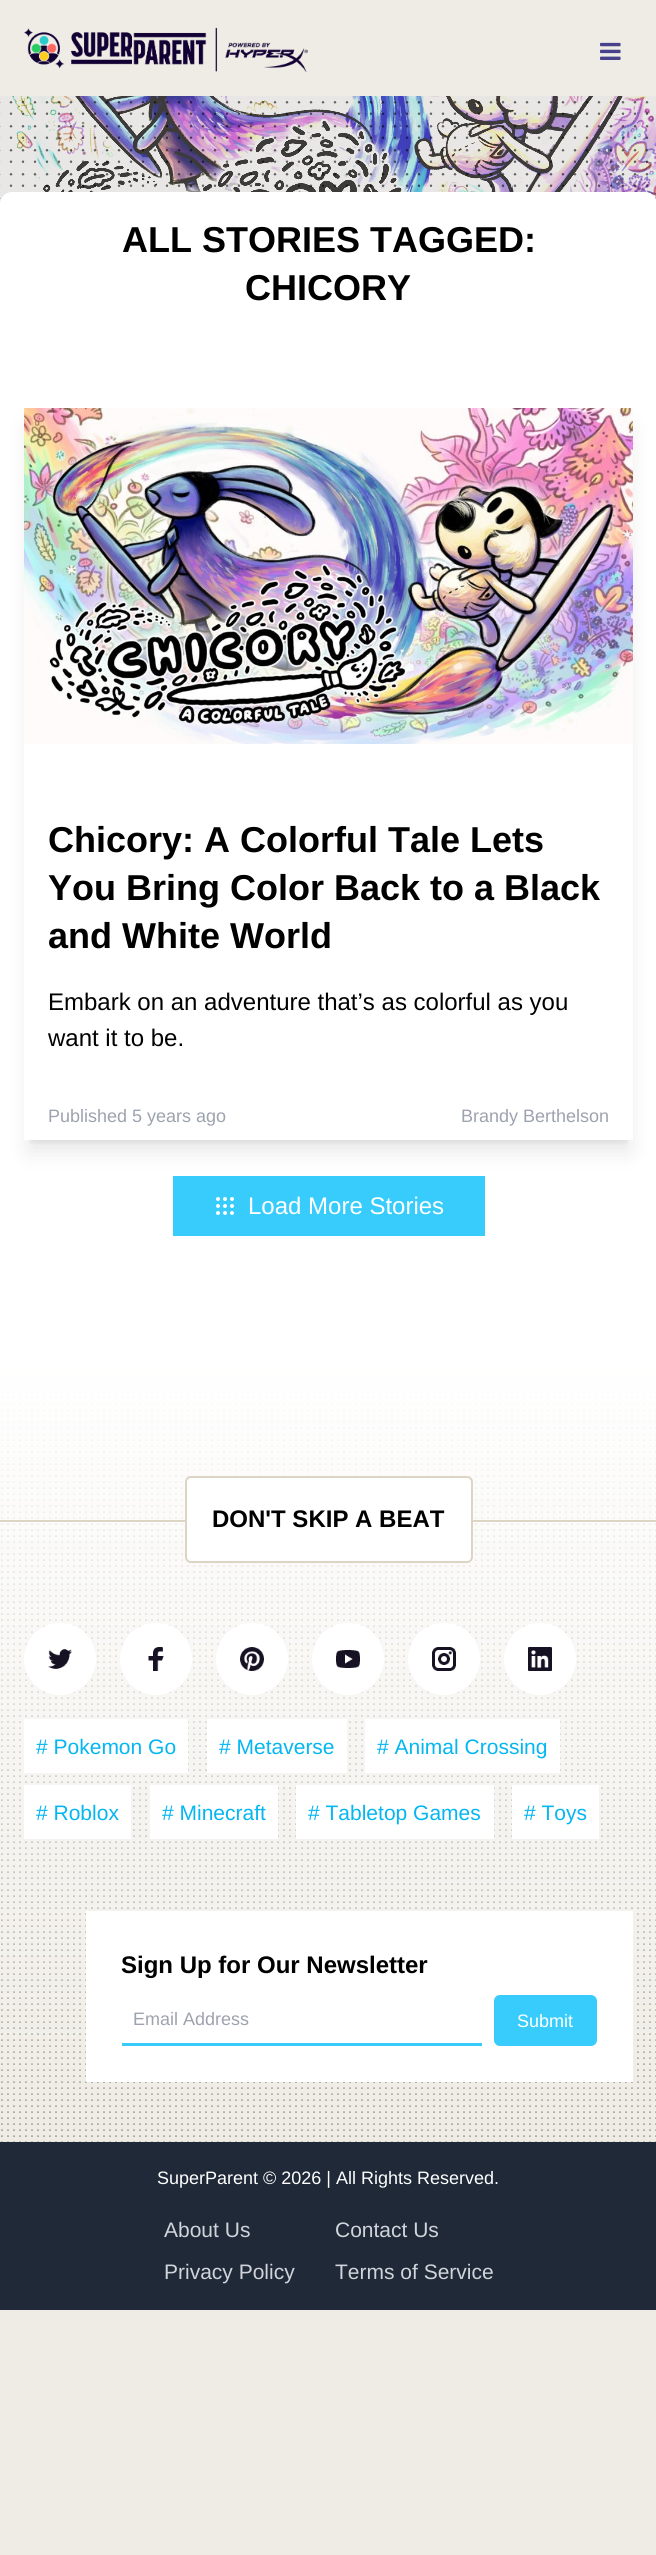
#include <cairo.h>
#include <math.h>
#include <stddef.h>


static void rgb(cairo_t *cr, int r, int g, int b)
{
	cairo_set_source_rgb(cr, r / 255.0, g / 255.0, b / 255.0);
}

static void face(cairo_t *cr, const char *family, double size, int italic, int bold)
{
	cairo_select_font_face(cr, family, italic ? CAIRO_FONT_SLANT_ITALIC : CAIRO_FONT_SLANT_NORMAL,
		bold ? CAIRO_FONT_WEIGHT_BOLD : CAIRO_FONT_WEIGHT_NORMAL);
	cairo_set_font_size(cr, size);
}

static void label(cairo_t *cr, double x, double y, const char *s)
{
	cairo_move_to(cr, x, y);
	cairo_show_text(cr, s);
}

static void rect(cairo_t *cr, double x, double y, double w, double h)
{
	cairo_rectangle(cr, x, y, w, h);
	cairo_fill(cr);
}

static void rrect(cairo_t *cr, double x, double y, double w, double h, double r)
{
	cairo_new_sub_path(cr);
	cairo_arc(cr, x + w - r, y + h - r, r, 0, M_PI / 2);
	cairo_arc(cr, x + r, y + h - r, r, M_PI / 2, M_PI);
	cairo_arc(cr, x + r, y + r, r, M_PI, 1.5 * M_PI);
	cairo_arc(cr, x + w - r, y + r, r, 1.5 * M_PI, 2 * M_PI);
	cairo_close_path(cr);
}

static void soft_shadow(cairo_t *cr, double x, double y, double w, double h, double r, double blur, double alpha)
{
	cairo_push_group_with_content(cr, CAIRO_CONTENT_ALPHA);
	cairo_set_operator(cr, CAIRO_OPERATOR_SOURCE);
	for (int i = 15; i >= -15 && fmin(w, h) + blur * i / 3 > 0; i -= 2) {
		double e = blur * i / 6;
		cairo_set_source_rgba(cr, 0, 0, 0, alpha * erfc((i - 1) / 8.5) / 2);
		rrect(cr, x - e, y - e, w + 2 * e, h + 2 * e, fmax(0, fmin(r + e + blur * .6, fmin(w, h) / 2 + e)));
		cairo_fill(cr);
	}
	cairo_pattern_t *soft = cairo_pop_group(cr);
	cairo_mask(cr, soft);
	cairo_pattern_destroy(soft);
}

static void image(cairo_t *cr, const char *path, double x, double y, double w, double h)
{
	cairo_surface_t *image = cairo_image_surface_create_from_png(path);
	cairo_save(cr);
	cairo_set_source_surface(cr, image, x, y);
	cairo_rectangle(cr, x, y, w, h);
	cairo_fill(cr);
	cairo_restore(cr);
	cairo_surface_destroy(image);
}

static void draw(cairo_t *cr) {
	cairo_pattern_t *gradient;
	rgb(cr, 239, 236, 229);
	cairo_paint(cr);
	image(cr, "image0.png", 24, 27, 284, 45);
	image(cr, "image1.png", 600, 42, 21, 18);
	image(cr, "image2.png", 0, 96, 656, 108);
	image(cr, "image3.png", 0, 101, 649, 98);
	rgb(cr, 255, 255, 255);
	rect(cr, 0, 336, 656, 1020);
	rrect(cr, 0, 192, 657, 156, 12);
	cairo_fill(cr);
	face(cr, "Liberation Sans", 36, 0, 1);
	rgb(cr, 0, 0, 0);
	label(cr, 122, 252, "ALL STORIES TAGGED:");
	label(cr, 245, 300, "CHICORY");
	cairo_save(cr);
	cairo_rectangle(cr, 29, 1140, 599, 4);
	cairo_clip(cr);
	rgb(cr, 0, 0, 0);
	soft_shadow(cr, 30, 420, 597, 720, 0, 4.5, 0.1);
	cairo_restore(cr);
	cairo_save(cr);
	cairo_set_fill_rule(cr, CAIRO_FILL_RULE_EVEN_ODD);
	cairo_new_path(cr);
	cairo_move_to(cr, 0, 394);
	cairo_line_to(cr, 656, 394);
	cairo_line_to(cr, 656, 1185);
	cairo_line_to(cr, 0, 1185);
	cairo_close_path(cr);
	cairo_move_to(cr, 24, 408);
	cairo_line_to(cr, 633, 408);
	cairo_line_to(cr, 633, 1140);
	cairo_line_to(cr, 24, 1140);
	cairo_close_path(cr);
	cairo_clip(cr);
	rgb(cr, 0, 0, 0);
	soft_shadow(cr, 29, 428, 600, 723, 0, 11, 0.1);
	cairo_restore(cr);
	image(cr, "image4.png", 24, 408, 609, 336);
	label(cr, 48, 852, "Chicory: A Colorful Tale Lets");
	label(cr, 48, 900, "You Bring Color Back to a Black");
	label(cr, 48, 948, "and White World");
	face(cr, "Liberation Sans", 24, 0, 0);
	label(cr, 48, 1010, "Embark on an adventure that’s as colorful as you");
	label(cr, 48, 1046, "want it to be.");
	face(cr, "Liberation Sans", 18, 0, 0);
	rgb(cr, 156, 163, 175);
	label(cr, 48, 1122, "Published 5 years ago");
	label(cr, 461, 1122, "Brandy Berthelson");
	rgb(cr, 55, 204, 252);
	rect(cr, 173, 1176, 312, 60);
	image(cr, "image5.png", 216, 1197, 18, 18);
	face(cr, "Liberation Sans", 24, 0, 0);
	rgb(cr, 255, 255, 255);
	label(cr, 248, 1214, "Load More Stories");
	image(cr, "image6.png", 1, 1361, 655, 781);
	gradient = cairo_pattern_create_linear(328, 1356, 329, 2142);
	cairo_pattern_add_color_stop_rgba(gradient, 0, 1, 1, 1, 1);
	cairo_pattern_add_color_stop_rgba(gradient, 1, 1, 1, 1, 0);
	cairo_set_source(cr, gradient);
	cairo_pattern_destroy(gradient);
	rect(cr, 0, 1356, 656, 763);
	rgb(cr, 255, 255, 255);
	rect(cr, 0, 1522, 656, 1);
	rgb(cr, 220, 213, 196);
	rect(cr, 0, 1520, 656, 2);
	rgb(cr, 255, 255, 255);
	rrect(cr, 186, 1477, 286, 85, 5);
	cairo_fill_preserve(cr);
	rgb(cr, 220, 213, 196);
	cairo_stroke(cr);
	face(cr, "Liberation Sans", 24, 0, 1);
	rgb(cr, 0, 0, 0);
	label(cr, 212, 1527, "DON'T SKIP A BEAT");
	rgb(cr, 255, 255, 255);
	cairo_new_path(cr);
	cairo_arc(cr, 60, 1659, 36, 0, 2 * M_PI);
	cairo_fill(cr);
	image(cr, "image7.png", 48, 1649, 24, 20);
	cairo_arc(cr, 156, 1659, 36, 0, 2 * M_PI);
	cairo_fill(cr);
	image(cr, "image8.png", 148, 1647, 16, 24);
	cairo_arc(cr, 252, 1659, 36, 0, 2 * M_PI);
	cairo_fill(cr);
	image(cr, "image9.png", 240, 1647, 24, 24);
	cairo_arc(cr, 348, 1659, 36, 0, 2 * M_PI);
	cairo_fill(cr);
	image(cr, "image10.png", 336, 1650, 24, 18);
	cairo_arc(cr, 444, 1659, 36, 0, 2 * M_PI);
	cairo_fill(cr);
	image(cr, "image11.png", 432, 1647, 24, 24);
	cairo_arc(cr, 540, 1659, 36, 0, 2 * M_PI);
	cairo_fill(cr);
	image(cr, "image12.png", 528, 1647, 24, 24);
	rect(cr, 24, 1719, 164, 54);
	face(cr, "Liberation Sans", 21, 0, 0);
	rgb(cr, 4, 182, 241);
	label(cr, 36, 1754, "# Pokemon Go");
	rgb(cr, 255, 255, 255);
	rect(cr, 207, 1719, 140, 54);
	rgb(cr, 4, 182, 241);
	label(cr, 219, 1754, "# Metaverse");
	rgb(cr, 255, 255, 255);
	rect(cr, 365, 1719, 195, 54);
	rgb(cr, 4, 182, 241);
	label(cr, 377, 1754, "# Animal Crossing");
	rgb(cr, 255, 255, 255);
	rect(cr, 24, 1785, 107, 54);
	rgb(cr, 4, 182, 241);
	label(cr, 36, 1820, "# Roblox");
	rgb(cr, 255, 255, 255);
	rect(cr, 150, 1785, 128, 54);
	rgb(cr, 4, 182, 241);
	label(cr, 162, 1820, "# Minecraft");
	rgb(cr, 255, 255, 255);
	rect(cr, 296, 1785, 198, 54);
	rgb(cr, 4, 182, 241);
	label(cr, 308, 1820, "# Tabletop Games");
	rgb(cr, 255, 255, 255);
	rect(cr, 512, 1785, 87, 54);
	rgb(cr, 4, 182, 241);
	label(cr, 524, 1820, "# Toys");
	rgb(cr, 255, 255, 255);
	rect(cr, 86, 1911, 547, 171);
	face(cr, "Liberation Sans", 24, 0, 1);
	rgb(cr, 0, 0, 0);
	label(cr, 121, 1973, "Sign Up for Our Newsletter");
	rgb(cr, 55, 204, 252);
	rect(cr, 122, 2043, 360, 3);
	face(cr, "Liberation Sans", 18, 0, 0);
	rgb(cr, 156, 163, 175);
	label(cr, 133, 2025, "Email Address");
	rgb(cr, 55, 204, 252);
	rrect(cr, 494, 1995, 103, 51, 6);
	cairo_fill(cr);
	rgb(cr, 255, 255, 255);
	label(cr, 517, 2027, "Submit");
	rgb(cr, 31, 41, 55);
	rect(cr, 0, 2142, 656, 168);
	rgb(cr, 255, 255, 255);
	label(cr, 157, 2184, "SuperParent © 2026 | All Rights Reserved.");
	face(cr, "Liberation Sans", 21, 0, 0);
	rgb(cr, 209, 213, 219);
	label(cr, 164, 2237, "About Us");
	label(cr, 335, 2237, "Contact Us");
	label(cr, 164, 2279, "Privacy Policy");
	label(cr, 335, 2279, "Terms of Service");
}

int main(void) {
	cairo_surface_t *surface = cairo_image_surface_create(CAIRO_FORMAT_RGB24, 656, 2555);
	cairo_t *cr = cairo_create(surface);
	cairo_font_options_t *options = cairo_font_options_create();
	cairo_font_options_set_hint_metrics(options, CAIRO_HINT_METRICS_OFF);
	cairo_font_options_set_hint_style(options, CAIRO_HINT_STYLE_NONE);
	cairo_set_font_options(cr, options);
	cairo_set_miter_limit(cr, 4);
	draw(cr);
	cairo_surface_write_to_png(surface, "render.png");
	cairo_font_options_destroy(options);
	cairo_destroy(cr);
	cairo_surface_destroy(surface);
	return 0;
}
